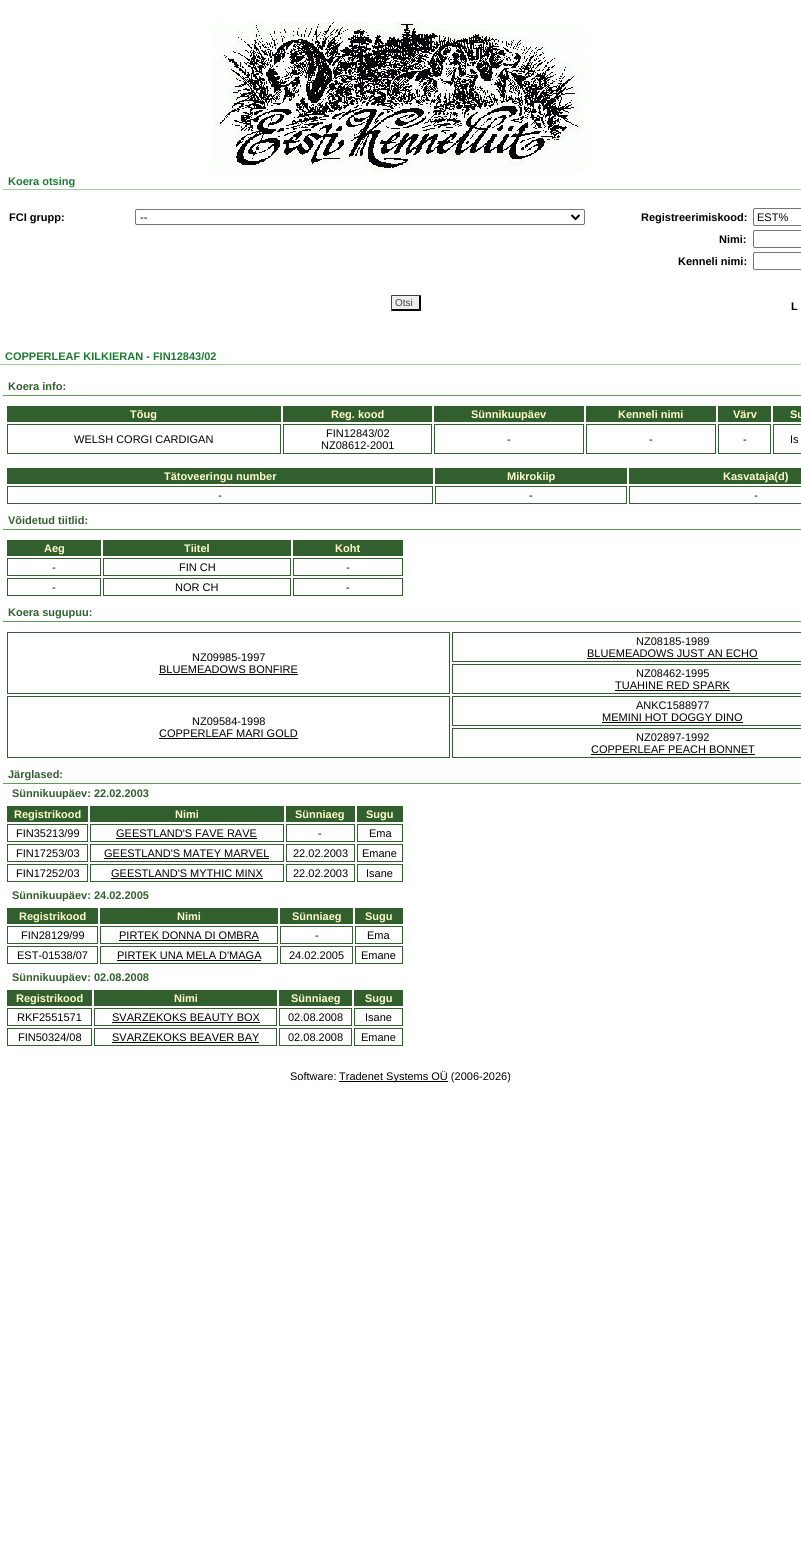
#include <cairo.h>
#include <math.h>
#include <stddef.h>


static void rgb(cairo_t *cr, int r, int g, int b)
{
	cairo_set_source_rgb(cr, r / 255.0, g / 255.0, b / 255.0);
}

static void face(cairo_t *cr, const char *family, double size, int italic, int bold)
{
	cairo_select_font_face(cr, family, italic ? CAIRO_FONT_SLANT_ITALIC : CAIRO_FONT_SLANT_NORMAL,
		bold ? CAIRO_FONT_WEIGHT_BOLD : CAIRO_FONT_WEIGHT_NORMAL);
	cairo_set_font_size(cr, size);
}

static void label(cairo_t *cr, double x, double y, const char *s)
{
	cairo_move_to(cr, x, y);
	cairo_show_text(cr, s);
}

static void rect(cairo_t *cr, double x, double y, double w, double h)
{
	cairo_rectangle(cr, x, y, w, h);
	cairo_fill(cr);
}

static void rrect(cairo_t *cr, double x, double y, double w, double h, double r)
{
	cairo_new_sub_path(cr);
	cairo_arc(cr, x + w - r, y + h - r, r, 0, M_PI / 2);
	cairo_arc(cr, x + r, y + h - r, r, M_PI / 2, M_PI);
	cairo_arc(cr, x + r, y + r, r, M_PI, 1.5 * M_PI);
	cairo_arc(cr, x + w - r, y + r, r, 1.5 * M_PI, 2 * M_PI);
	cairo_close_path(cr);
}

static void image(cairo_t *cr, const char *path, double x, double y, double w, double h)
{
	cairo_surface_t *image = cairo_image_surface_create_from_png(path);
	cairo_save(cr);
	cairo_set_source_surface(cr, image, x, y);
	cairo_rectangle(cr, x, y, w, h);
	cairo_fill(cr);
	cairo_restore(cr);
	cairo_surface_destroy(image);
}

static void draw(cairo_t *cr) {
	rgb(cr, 255, 255, 255);
	cairo_paint(cr);
	image(cr, "image0.png", 213, 22, 376, 150);
	rgb(cr, 166, 202, 162);
	rect(cr, 3, 189, 798, 1);
	face(cr, "Liberation Sans", 11, 0, 1);
	rgb(cr, 26, 124, 47);
	label(cr, 8, 185, "Koera otsing");
	rgb(cr, 0, 0, 0);
	label(cr, 9, 221, "FCI grupp:");
	rrect(cr, 135.5, 209.5, 449, 15, 1.5);
	rgb(cr, 118, 118, 118);
	cairo_set_line_width(cr, 1);
	cairo_stroke(cr);
	cairo_new_path(cr);
	cairo_move_to(cr, 571.5, 215);
	cairo_line_to(cr, 575.5, 219);
	cairo_line_to(cr, 579.5, 215);
	rgb(cr, 0, 0, 0);
	cairo_set_line_width(cr, 2);
	cairo_stroke(cr);
	face(cr, "Liberation Sans", 11, 0, 0);
	label(cr, 140, 221, "--");
	face(cr, "Liberation Sans", 11, 0, 1);
	label(cr, 641, 221, "Registreerimiskood:");
	rrect(cr, 753.5, 208.5, 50, 17, 1.5);
	rgb(cr, 118, 118, 118);
	cairo_set_line_width(cr, 1);
	cairo_stroke(cr);
	face(cr, "Liberation Sans", 11, 0, 0);
	rgb(cr, 0, 0, 0);
	label(cr, 757, 221, "EST%");
	face(cr, "Liberation Sans", 11, 0, 1);
	label(cr, 719, 243, "Nimi:");
	rrect(cr, 753.5, 230.5, 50, 17, 1.5);
	rgb(cr, 118, 118, 118);
	cairo_stroke(cr);
	rgb(cr, 0, 0, 0);
	label(cr, 678, 265, "Kenneli nimi:");
	rrect(cr, 753.5, 252.5, 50, 17, 1.5);
	rgb(cr, 118, 118, 118);
	cairo_stroke(cr);
	rgb(cr, 239, 239, 239);
	rect(cr, 391, 295, 30, 16);
	rgb(cr, 64, 64, 64);
	cairo_new_path(cr);
	cairo_move_to(cr, 391, 295);
	cairo_line_to(cr, 421, 295);
	cairo_line_to(cr, 419, 296);
	cairo_line_to(cr, 392, 296);
	cairo_close_path(cr);
	cairo_fill(cr);
	rgb(cr, 0, 0, 0);
	cairo_new_path(cr);
	cairo_move_to(cr, 421, 295);
	cairo_line_to(cr, 421, 311);
	cairo_line_to(cr, 419, 309);
	cairo_line_to(cr, 419, 296);
	cairo_close_path(cr);
	cairo_fill(cr);
	cairo_new_path(cr);
	cairo_move_to(cr, 421, 311);
	cairo_line_to(cr, 391, 311);
	cairo_line_to(cr, 392, 309);
	cairo_line_to(cr, 419, 309);
	cairo_close_path(cr);
	cairo_fill(cr);
	rgb(cr, 64, 64, 64);
	cairo_new_path(cr);
	cairo_move_to(cr, 391, 311);
	cairo_line_to(cr, 391, 295);
	cairo_line_to(cr, 392, 296);
	cairo_line_to(cr, 392, 309);
	cairo_close_path(cr);
	cairo_fill(cr);
	face(cr, "Liberation Sans", 10, 0, 0);
	label(cr, 395, 306, "Otsi");
	face(cr, "Liberation Sans", 11, 0, 1);
	rgb(cr, 0, 0, 0);
	label(cr, 791, 310, "L");
	rgb(cr, 166, 202, 162);
	rect(cr, 0, 364, 801, 1);
	rgb(cr, 26, 124, 47);
	label(cr, 5, 360, "COPPERLEAF KILKIERAN - FIN12843/02");
	rgb(cr, 94, 154, 88);
	rect(cr, 3, 395, 798, 1);
	rgb(cr, 49, 95, 45);
	label(cr, 8, 390, "Koera info:");
	rect(cr, 7, 406, 274, 16);
	rgb(cr, 255, 255, 204);
	label(cr, 130, 418, "Tõug");
	rgb(cr, 49, 95, 45);
	rect(cr, 283, 406, 149, 16);
	rgb(cr, 255, 255, 204);
	label(cr, 331, 418, "Reg. kood");
	rgb(cr, 49, 95, 45);
	rect(cr, 434, 406, 150, 16);
	rgb(cr, 255, 255, 204);
	label(cr, 471, 418, "Sünnikuupäev");
	rgb(cr, 49, 95, 45);
	rect(cr, 586, 406, 130, 16);
	rgb(cr, 255, 255, 204);
	label(cr, 618, 418, "Kenneli nimi");
	rgb(cr, 49, 95, 45);
	rect(cr, 718, 406, 53, 16);
	rgb(cr, 255, 255, 204);
	label(cr, 733, 418, "Värv");
	rgb(cr, 49, 95, 45);
	rect(cr, 773, 406, 28, 16);
	rgb(cr, 255, 255, 204);
	label(cr, 790, 418, "Su");
	cairo_rectangle(cr, 7.5, 424.5, 273, 29);
	rgb(cr, 49, 95, 45);
	cairo_stroke(cr);
	face(cr, "Liberation Sans", 11, 0, 0);
	rgb(cr, 0, 0, 0);
	label(cr, 74, 443, "WELSH CORGI CARDIGAN");
	cairo_rectangle(cr, 283.5, 424.5, 148, 29);
	rgb(cr, 49, 95, 45);
	cairo_stroke(cr);
	rgb(cr, 0, 0, 0);
	label(cr, 326, 437, "FIN12843/02");
	label(cr, 321, 449, "NZ08612-2001");
	cairo_rectangle(cr, 434.5, 424.5, 149, 29);
	rgb(cr, 49, 95, 45);
	cairo_stroke(cr);
	rgb(cr, 0, 0, 0);
	label(cr, 507, 443, "-");
	cairo_rectangle(cr, 586.5, 424.5, 129, 29);
	rgb(cr, 49, 95, 45);
	cairo_stroke(cr);
	rgb(cr, 0, 0, 0);
	label(cr, 649, 443, "-");
	cairo_rectangle(cr, 718.5, 424.5, 52, 29);
	rgb(cr, 49, 95, 45);
	cairo_stroke(cr);
	rgb(cr, 0, 0, 0);
	label(cr, 743, 443, "-");
	cairo_rectangle(cr, 773.5, 424.5, 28, 29);
	rgb(cr, 49, 95, 45);
	cairo_stroke(cr);
	rgb(cr, 0, 0, 0);
	label(cr, 790, 443, "Is");
	rgb(cr, 49, 95, 45);
	rect(cr, 7, 468, 426, 16);
	face(cr, "Liberation Sans", 11, 0, 1);
	rgb(cr, 255, 255, 204);
	label(cr, 164, 480, "Tätoveeringu number");
	rgb(cr, 49, 95, 45);
	rect(cr, 435, 468, 192, 16);
	rgb(cr, 255, 255, 204);
	label(cr, 507, 480, "Mikrokiip");
	rgb(cr, 49, 95, 45);
	rect(cr, 629, 468, 172, 16);
	rgb(cr, 255, 255, 204);
	label(cr, 723, 480, "Kasvataja(d)");
	cairo_rectangle(cr, 7.5, 486.5, 425, 17);
	rgb(cr, 49, 95, 45);
	cairo_stroke(cr);
	face(cr, "Liberation Sans", 11, 0, 0);
	rgb(cr, 0, 0, 0);
	label(cr, 218, 499, "-");
	cairo_rectangle(cr, 435.5, 486.5, 191, 17);
	rgb(cr, 49, 95, 45);
	cairo_stroke(cr);
	rgb(cr, 0, 0, 0);
	label(cr, 529, 499, "-");
	cairo_rectangle(cr, 629.5, 486.5, 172, 17);
	rgb(cr, 49, 95, 45);
	cairo_stroke(cr);
	rgb(cr, 0, 0, 0);
	label(cr, 754, 499, "-");
	rgb(cr, 94, 154, 88);
	rect(cr, 3, 529, 798, 1);
	face(cr, "Liberation Sans", 11, 0, 1);
	rgb(cr, 49, 95, 45);
	label(cr, 8, 524, "Võidetud tiitlid:");
	rect(cr, 7, 540, 94, 16);
	rgb(cr, 255, 255, 204);
	label(cr, 44, 552, "Aeg");
	rgb(cr, 49, 95, 45);
	rect(cr, 103, 540, 188, 16);
	rgb(cr, 255, 255, 204);
	label(cr, 184, 552, "Tiitel");
	rgb(cr, 49, 95, 45);
	rect(cr, 293, 540, 110, 16);
	rgb(cr, 255, 255, 204);
	label(cr, 335, 552, "Koht");
	cairo_rectangle(cr, 7.5, 558.5, 93, 17);
	rgb(cr, 49, 95, 45);
	cairo_stroke(cr);
	face(cr, "Liberation Sans", 11, 0, 0);
	rgb(cr, 0, 0, 0);
	label(cr, 52, 571, "-");
	cairo_rectangle(cr, 103.5, 558.5, 187, 17);
	rgb(cr, 49, 95, 45);
	cairo_stroke(cr);
	rgb(cr, 0, 0, 0);
	label(cr, 179, 571, "FIN CH");
	cairo_rectangle(cr, 293.5, 558.5, 109, 17);
	rgb(cr, 49, 95, 45);
	cairo_stroke(cr);
	rgb(cr, 0, 0, 0);
	label(cr, 346, 571, "-");
	cairo_rectangle(cr, 7.5, 578.5, 93, 17);
	rgb(cr, 49, 95, 45);
	cairo_stroke(cr);
	rgb(cr, 0, 0, 0);
	label(cr, 52, 591, "-");
	cairo_rectangle(cr, 103.5, 578.5, 187, 17);
	rgb(cr, 49, 95, 45);
	cairo_stroke(cr);
	rgb(cr, 0, 0, 0);
	label(cr, 175, 591, "NOR CH");
	cairo_rectangle(cr, 293.5, 578.5, 109, 17);
	rgb(cr, 49, 95, 45);
	cairo_stroke(cr);
	rgb(cr, 0, 0, 0);
	label(cr, 346, 591, "-");
	rgb(cr, 94, 154, 88);
	rect(cr, 3, 621, 798, 1);
	face(cr, "Liberation Sans", 11, 0, 1);
	rgb(cr, 49, 95, 45);
	label(cr, 8, 616, "Koera sugupuu:");
	cairo_rectangle(cr, 452.5, 632.5, 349, 29);
	cairo_stroke(cr);
	face(cr, "Liberation Sans", 11, 0, 0);
	rgb(cr, 0, 0, 0);
	label(cr, 636, 645, "NZ08185-1989");
	label(cr, 587, 657, "BLUEMEADOWS JUST AN ECHO");
	rect(cr, 587, 658, 171, 1);
	cairo_rectangle(cr, 7.5, 632.5, 442, 61);
	rgb(cr, 49, 95, 45);
	cairo_stroke(cr);
	rgb(cr, 0, 0, 0);
	label(cr, 192, 661, "NZ09985-1997");
	label(cr, 159, 673, "BLUEMEADOWS BONFIRE");
	rect(cr, 159, 674, 139, 1);
	cairo_rectangle(cr, 452.5, 664.5, 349, 29);
	rgb(cr, 49, 95, 45);
	cairo_stroke(cr);
	rgb(cr, 0, 0, 0);
	label(cr, 636, 677, "NZ08462-1995");
	label(cr, 615, 689, "TUAHINE RED SPARK");
	rect(cr, 615, 690, 115, 1);
	cairo_rectangle(cr, 452.5, 696.5, 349, 29);
	rgb(cr, 49, 95, 45);
	cairo_stroke(cr);
	rgb(cr, 0, 0, 0);
	label(cr, 636, 709, "ANKC1588977");
	label(cr, 602, 721, "MEMINI HOT DOGGY DINO");
	rect(cr, 602, 722, 141, 1);
	cairo_rectangle(cr, 7.5, 696.5, 442, 61);
	rgb(cr, 49, 95, 45);
	cairo_stroke(cr);
	rgb(cr, 0, 0, 0);
	label(cr, 192, 725, "NZ09584-1998");
	label(cr, 159, 737, "COPPERLEAF MARI GOLD");
	rect(cr, 159, 738, 139, 1);
	cairo_rectangle(cr, 452.5, 728.5, 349, 29);
	rgb(cr, 49, 95, 45);
	cairo_stroke(cr);
	rgb(cr, 0, 0, 0);
	label(cr, 636, 741, "NZ02897-1992");
	label(cr, 591, 753, "COPPERLEAF PEACH BONNET");
	rect(cr, 591, 754, 164, 1);
	rgb(cr, 94, 154, 88);
	rect(cr, 3, 783, 798, 1);
	face(cr, "Liberation Sans", 11, 0, 1);
	rgb(cr, 49, 95, 45);
	label(cr, 8, 778, "Järglased:");
	label(cr, 12, 797, "Sünnikuupäev: 22.02.2003");
	rect(cr, 7, 806, 81, 16);
	rgb(cr, 255, 255, 204);
	label(cr, 14, 818, "Registrikood");
	rgb(cr, 49, 95, 45);
	rect(cr, 90, 806, 194, 16);
	rgb(cr, 255, 255, 204);
	label(cr, 175, 818, "Nimi");
	rgb(cr, 49, 95, 45);
	rect(cr, 286, 806, 69, 16);
	rgb(cr, 255, 255, 204);
	label(cr, 295, 818, "Sünniaeg");
	rgb(cr, 49, 95, 45);
	rect(cr, 357, 806, 46, 16);
	rgb(cr, 255, 255, 204);
	label(cr, 366, 818, "Sugu");
	cairo_rectangle(cr, 7.5, 824.5, 80, 17);
	rgb(cr, 49, 95, 45);
	cairo_stroke(cr);
	face(cr, "Liberation Sans", 11, 0, 0);
	rgb(cr, 0, 0, 0);
	label(cr, 16, 837, "FIN35213/99");
	cairo_rectangle(cr, 90.5, 824.5, 193, 17);
	rgb(cr, 49, 95, 45);
	cairo_stroke(cr);
	rgb(cr, 0, 0, 0);
	label(cr, 116, 837, "GEESTLAND'S FAVE RAVE");
	rect(cr, 116, 838, 141, 1);
	cairo_rectangle(cr, 286.5, 824.5, 68, 17);
	rgb(cr, 49, 95, 45);
	cairo_stroke(cr);
	rgb(cr, 0, 0, 0);
	label(cr, 318, 837, "-");
	cairo_rectangle(cr, 357.5, 824.5, 45, 17);
	rgb(cr, 49, 95, 45);
	cairo_stroke(cr);
	rgb(cr, 0, 0, 0);
	label(cr, 369, 837, "Ema");
	cairo_rectangle(cr, 7.5, 844.5, 80, 17);
	rgb(cr, 49, 95, 45);
	cairo_stroke(cr);
	rgb(cr, 0, 0, 0);
	label(cr, 16, 857, "FIN17253/03");
	cairo_rectangle(cr, 90.5, 844.5, 193, 17);
	rgb(cr, 49, 95, 45);
	cairo_stroke(cr);
	rgb(cr, 0, 0, 0);
	label(cr, 104, 857, "GEESTLAND'S MATEY MARVEL");
	rect(cr, 104, 858, 165, 1);
	cairo_rectangle(cr, 286.5, 844.5, 68, 17);
	rgb(cr, 49, 95, 45);
	cairo_stroke(cr);
	rgb(cr, 0, 0, 0);
	label(cr, 293, 857, "22.02.2003");
	cairo_rectangle(cr, 357.5, 844.5, 45, 17);
	rgb(cr, 49, 95, 45);
	cairo_stroke(cr);
	rgb(cr, 0, 0, 0);
	label(cr, 362, 857, "Emane");
	cairo_rectangle(cr, 7.5, 864.5, 80, 17);
	rgb(cr, 49, 95, 45);
	cairo_stroke(cr);
	rgb(cr, 0, 0, 0);
	label(cr, 16, 877, "FIN17252/03");
	cairo_rectangle(cr, 90.5, 864.5, 193, 17);
	rgb(cr, 49, 95, 45);
	cairo_stroke(cr);
	rgb(cr, 0, 0, 0);
	label(cr, 111, 877, "GEESTLAND'S MYTHIC MINX");
	rect(cr, 111, 878, 152, 1);
	cairo_rectangle(cr, 286.5, 864.5, 68, 17);
	rgb(cr, 49, 95, 45);
	cairo_stroke(cr);
	rgb(cr, 0, 0, 0);
	label(cr, 293, 877, "22.02.2003");
	cairo_rectangle(cr, 357.5, 864.5, 45, 17);
	rgb(cr, 49, 95, 45);
	cairo_stroke(cr);
	rgb(cr, 0, 0, 0);
	label(cr, 366, 877, "Isane");
	face(cr, "Liberation Sans", 11, 0, 1);
	rgb(cr, 49, 95, 45);
	label(cr, 12, 899, "Sünnikuupäev: 24.02.2005");
	rect(cr, 7, 908, 91, 16);
	rgb(cr, 255, 255, 204);
	label(cr, 19, 920, "Registrikood");
	rgb(cr, 49, 95, 45);
	rect(cr, 100, 908, 178, 16);
	rgb(cr, 255, 255, 204);
	label(cr, 177, 920, "Nimi");
	rgb(cr, 49, 95, 45);
	rect(cr, 280, 908, 73, 16);
	rgb(cr, 255, 255, 204);
	label(cr, 292, 920, "Sünniaeg");
	rgb(cr, 49, 95, 45);
	rect(cr, 355, 908, 48, 16);
	rgb(cr, 255, 255, 204);
	label(cr, 365, 920, "Sugu");
	cairo_rectangle(cr, 7.5, 926.5, 90, 17);
	rgb(cr, 49, 95, 45);
	cairo_stroke(cr);
	face(cr, "Liberation Sans", 11, 0, 0);
	rgb(cr, 0, 0, 0);
	label(cr, 21, 939, "FIN28129/99");
	cairo_rectangle(cr, 100.5, 926.5, 177, 17);
	rgb(cr, 49, 95, 45);
	cairo_stroke(cr);
	rgb(cr, 0, 0, 0);
	label(cr, 119, 939, "PIRTEK DONNA DI OMBRA");
	rect(cr, 119, 940, 140, 1);
	cairo_rectangle(cr, 280.5, 926.5, 72, 17);
	rgb(cr, 49, 95, 45);
	cairo_stroke(cr);
	rgb(cr, 0, 0, 0);
	label(cr, 315, 939, "-");
	cairo_rectangle(cr, 355.5, 926.5, 47, 17);
	rgb(cr, 49, 95, 45);
	cairo_stroke(cr);
	rgb(cr, 0, 0, 0);
	label(cr, 367, 939, "Ema");
	cairo_rectangle(cr, 7.5, 946.5, 90, 17);
	rgb(cr, 49, 95, 45);
	cairo_stroke(cr);
	rgb(cr, 0, 0, 0);
	label(cr, 17, 959, "EST-01538/07");
	cairo_rectangle(cr, 100.5, 946.5, 177, 17);
	rgb(cr, 49, 95, 45);
	cairo_stroke(cr);
	rgb(cr, 0, 0, 0);
	label(cr, 117, 959, "PIRTEK UNA MELA D'MAGA");
	rect(cr, 117, 960, 144, 1);
	cairo_rectangle(cr, 280.5, 946.5, 72, 17);
	rgb(cr, 49, 95, 45);
	cairo_stroke(cr);
	rgb(cr, 0, 0, 0);
	label(cr, 289, 959, "24.02.2005");
	cairo_rectangle(cr, 355.5, 946.5, 47, 17);
	rgb(cr, 49, 95, 45);
	cairo_stroke(cr);
	rgb(cr, 0, 0, 0);
	label(cr, 361, 959, "Emane");
	face(cr, "Liberation Sans", 11, 0, 1);
	rgb(cr, 49, 95, 45);
	label(cr, 12, 981, "Sünnikuupäev: 02.08.2008");
	rect(cr, 7, 990, 85, 16);
	rgb(cr, 255, 255, 204);
	label(cr, 16, 1002, "Registrikood");
	rgb(cr, 49, 95, 45);
	rect(cr, 94, 990, 183, 16);
	rgb(cr, 255, 255, 204);
	label(cr, 174, 1002, "Nimi");
	rgb(cr, 49, 95, 45);
	rect(cr, 279, 990, 73, 16);
	rgb(cr, 255, 255, 204);
	label(cr, 291, 1002, "Sünniaeg");
	rgb(cr, 49, 95, 45);
	rect(cr, 354, 990, 49, 16);
	rgb(cr, 255, 255, 204);
	label(cr, 365, 1002, "Sugu");
	cairo_rectangle(cr, 7.5, 1008.5, 84, 17);
	rgb(cr, 49, 95, 45);
	cairo_stroke(cr);
	face(cr, "Liberation Sans", 11, 0, 0);
	rgb(cr, 0, 0, 0);
	label(cr, 17, 1021, "RKF2551571");
	cairo_rectangle(cr, 94.5, 1008.5, 182, 17);
	rgb(cr, 49, 95, 45);
	cairo_stroke(cr);
	rgb(cr, 0, 0, 0);
	label(cr, 112, 1021, "SVARZEKOKS BEAUTY BOX");
	rect(cr, 112, 1022, 148, 1);
	cairo_rectangle(cr, 279.5, 1008.5, 72, 17);
	rgb(cr, 49, 95, 45);
	cairo_stroke(cr);
	rgb(cr, 0, 0, 0);
	label(cr, 288, 1021, "02.08.2008");
	cairo_rectangle(cr, 354.5, 1008.5, 48, 17);
	rgb(cr, 49, 95, 45);
	cairo_stroke(cr);
	rgb(cr, 0, 0, 0);
	label(cr, 365, 1021, "Isane");
	cairo_rectangle(cr, 7.5, 1028.5, 84, 17);
	rgb(cr, 49, 95, 45);
	cairo_stroke(cr);
	rgb(cr, 0, 0, 0);
	label(cr, 18, 1041, "FIN50324/08");
	cairo_rectangle(cr, 94.5, 1028.5, 182, 17);
	rgb(cr, 49, 95, 45);
	cairo_stroke(cr);
	rgb(cr, 0, 0, 0);
	label(cr, 112, 1041, "SVARZEKOKS BEAVER BAY");
	rect(cr, 112, 1042, 147, 1);
	cairo_rectangle(cr, 279.5, 1028.5, 72, 17);
	rgb(cr, 49, 95, 45);
	cairo_stroke(cr);
	rgb(cr, 0, 0, 0);
	label(cr, 288, 1041, "02.08.2008");
	cairo_rectangle(cr, 354.5, 1028.5, 48, 17);
	rgb(cr, 49, 95, 45);
	cairo_stroke(cr);
	rgb(cr, 0, 0, 0);
	label(cr, 361, 1041, "Emane");
	label(cr, 290, 1080, "Software:");
	rect(cr, 339, 1081, 109, 1);
	label(cr, 339, 1080, "Tradenet Systems OÜ (2006-2026)");
}

int main(void) {
	cairo_surface_t *surface = cairo_image_surface_create(CAIRO_FORMAT_RGB24, 801, 1553);
	cairo_t *cr = cairo_create(surface);
	cairo_font_options_t *options = cairo_font_options_create();
	cairo_font_options_set_hint_metrics(options, CAIRO_HINT_METRICS_OFF);
	cairo_font_options_set_hint_style(options, CAIRO_HINT_STYLE_NONE);
	cairo_set_font_options(cr, options);
	cairo_set_miter_limit(cr, 4);
	draw(cr);
	cairo_surface_write_to_png(surface, "render.png");
	cairo_font_options_destroy(options);
	cairo_destroy(cr);
	cairo_surface_destroy(surface);
	return 0;
}
